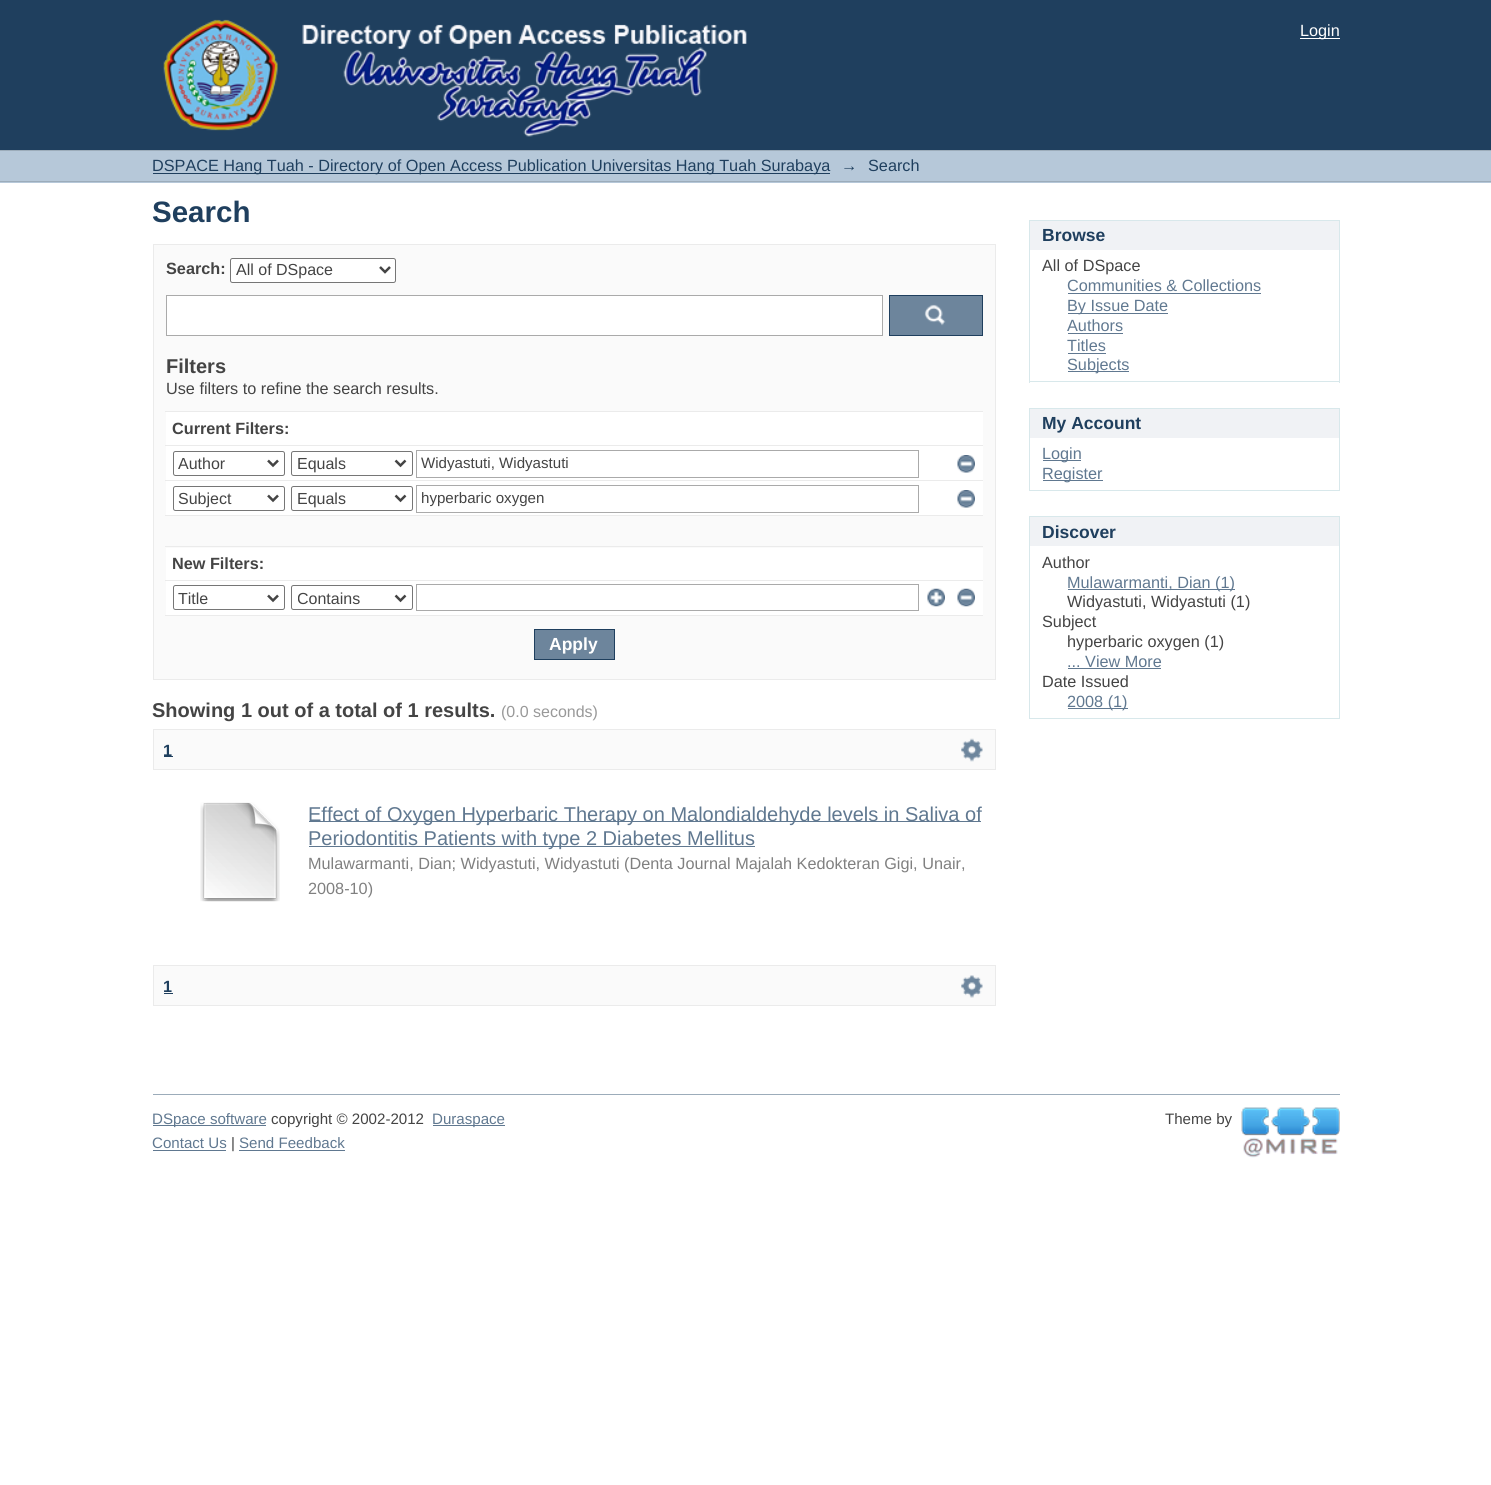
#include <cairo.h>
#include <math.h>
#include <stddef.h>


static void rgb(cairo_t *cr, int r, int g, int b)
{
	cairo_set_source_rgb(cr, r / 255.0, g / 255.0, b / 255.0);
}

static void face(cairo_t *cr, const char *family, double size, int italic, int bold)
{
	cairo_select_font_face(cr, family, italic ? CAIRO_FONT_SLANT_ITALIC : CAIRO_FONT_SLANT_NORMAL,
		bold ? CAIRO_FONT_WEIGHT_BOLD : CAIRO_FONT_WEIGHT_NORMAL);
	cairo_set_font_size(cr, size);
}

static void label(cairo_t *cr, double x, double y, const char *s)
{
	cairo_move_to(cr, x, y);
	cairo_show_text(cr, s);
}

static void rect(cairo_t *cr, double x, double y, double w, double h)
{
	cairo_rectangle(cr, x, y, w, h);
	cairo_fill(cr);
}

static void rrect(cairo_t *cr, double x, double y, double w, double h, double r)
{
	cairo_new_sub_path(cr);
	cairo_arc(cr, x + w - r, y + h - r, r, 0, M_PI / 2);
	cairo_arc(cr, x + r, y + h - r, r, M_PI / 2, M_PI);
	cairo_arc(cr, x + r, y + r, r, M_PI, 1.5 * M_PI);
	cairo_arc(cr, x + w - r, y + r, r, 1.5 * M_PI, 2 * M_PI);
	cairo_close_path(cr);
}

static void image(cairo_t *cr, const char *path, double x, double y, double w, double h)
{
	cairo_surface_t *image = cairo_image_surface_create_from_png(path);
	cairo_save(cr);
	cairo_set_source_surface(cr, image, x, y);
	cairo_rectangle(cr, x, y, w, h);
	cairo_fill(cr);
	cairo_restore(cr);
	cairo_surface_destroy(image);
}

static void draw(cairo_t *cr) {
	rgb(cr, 255, 255, 255);
	cairo_paint(cr);
	rgb(cr, 31, 63, 94);
	rect(cr, 0, 0, 1491, 150);
	image(cr, "image0.png", 163, 19, 584, 118);
	rgb(cr, 255, 255, 255);
	rect(cr, 1300, 38, 40, 1);
	face(cr, "Liberation Sans", 16.25, 0, 0);
	label(cr, 1300, 36, "Login");
	rgb(cr, 182, 200, 217);
	rect(cr, 0, 151, 1491, 32);
	rgb(cr, 156, 172, 186);
	rect(cr, 0, 150, 1491, 1);
	rect(cr, 0, 181, 1491, 1);
	rgb(cr, 31, 63, 94);
	rect(cr, 153, 173, 677, 1);
	label(cr, 152, 171, "DSPACE Hang Tuah - Directory of Open Access Publication Universitas Hang Tuah Surabaya");
	label(cr, 841, 171, "→");
	label(cr, 868, 171, "Search");
	face(cr, "Liberation Sans", 29.5, 0, 1);
	label(cr, 152, 222, "Search");
	rgb(cr, 250, 250, 250);
	cairo_rectangle(cr, 153.5, 244.5, 842, 435);
	cairo_fill_preserve(cr);
	rgb(cr, 235, 235, 235);
	cairo_set_line_width(cr, 1);
	cairo_stroke(cr);
	face(cr, "Liberation Sans", 16.25, 0, 1);
	rgb(cr, 68, 68, 68);
	label(cr, 166, 274, "Search:");
	rgb(cr, 255, 255, 255);
	rrect(cr, 230.5, 258.5, 165, 24, 2);
	cairo_fill_preserve(cr);
	rgb(cr, 118, 118, 118);
	cairo_stroke(cr);
	cairo_new_path(cr);
	cairo_move_to(cr, 380, 267);
	cairo_line_to(cr, 385, 272);
	cairo_line_to(cr, 390, 267);
	rgb(cr, 68, 68, 68);
	cairo_set_line_width(cr, 2.5);
	cairo_stroke(cr);
	face(cr, "Liberation Sans", 16, 0, 0);
	label(cr, 236, 275, "All of DSpace");
	rgb(cr, 255, 255, 255);
	cairo_rectangle(cr, 166.5, 295.5, 716, 40);
	cairo_fill_preserve(cr);
	rgb(cr, 170, 170, 170);
	cairo_set_line_width(cr, 1);
	cairo_stroke(cr);
	rgb(cr, 109, 133, 156);
	rect(cr, 890, 296, 92, 39);
	image(cr, "image1.png", 924, 304, 22, 22);
	cairo_rectangle(cr, 889.5, 295.5, 93, 40);
	rgb(cr, 31, 63, 94);
	cairo_stroke(cr);
	face(cr, "Liberation Sans", 20, 0, 1);
	rgb(cr, 68, 68, 68);
	label(cr, 166, 373, "Filters");
	face(cr, "Liberation Sans", 16.25, 0, 0);
	label(cr, 166, 394, "Use filters to refine the search results.");
	rgb(cr, 255, 255, 255);
	rect(cr, 166, 412, 817, 203);
	rgb(cr, 235, 235, 235);
	rect(cr, 165, 411, 818, 1);
	face(cr, "Liberation Sans", 16.25, 0, 1);
	rgb(cr, 68, 68, 68);
	label(cr, 172, 434, "Current Filters:");
	rgb(cr, 235, 235, 235);
	rect(cr, 165, 445, 818, 1);
	rrect(cr, 173.5, 451.5, 111, 24, 2);
	rgb(cr, 118, 118, 118);
	cairo_stroke(cr);
	cairo_new_path(cr);
	cairo_move_to(cr, 268, 460.5);
	cairo_line_to(cr, 273, 465.5);
	cairo_line_to(cr, 278, 460.5);
	rgb(cr, 68, 68, 68);
	cairo_set_line_width(cr, 2.5);
	cairo_stroke(cr);
	face(cr, "Liberation Sans", 16, 0, 0);
	label(cr, 178, 469, "Author");
	rrect(cr, 291.5, 451.5, 121, 24, 2);
	rgb(cr, 118, 118, 118);
	cairo_set_line_width(cr, 1);
	cairo_stroke(cr);
	cairo_new_path(cr);
	cairo_move_to(cr, 395.5, 460.5);
	cairo_line_to(cr, 400.5, 465.5);
	cairo_line_to(cr, 405.5, 460.5);
	rgb(cr, 68, 68, 68);
	cairo_set_line_width(cr, 2.5);
	cairo_stroke(cr);
	label(cr, 297, 469, "Equals");
	cairo_rectangle(cr, 416.5, 450.5, 502, 27);
	rgb(cr, 170, 170, 170);
	cairo_set_line_width(cr, 1);
	cairo_stroke(cr);
	face(cr, "Liberation Sans", 15.1, 0, 0);
	rgb(cr, 68, 68, 68);
	label(cr, 421, 468, "Widyastuti, Widyastuti");
	image(cr, "image2.png", 957, 455, 18, 18);
	rgb(cr, 235, 235, 235);
	rect(cr, 165, 480, 818, 1);
	rrect(cr, 173.5, 486.5, 111, 24, 2);
	rgb(cr, 118, 118, 118);
	cairo_stroke(cr);
	cairo_new_path(cr);
	cairo_move_to(cr, 268, 495.5);
	cairo_line_to(cr, 273, 500.5);
	cairo_line_to(cr, 278, 495.5);
	rgb(cr, 68, 68, 68);
	cairo_set_line_width(cr, 2.5);
	cairo_stroke(cr);
	face(cr, "Liberation Sans", 16, 0, 0);
	label(cr, 178, 504, "Subject");
	rrect(cr, 291.5, 486.5, 121, 24, 2);
	rgb(cr, 118, 118, 118);
	cairo_set_line_width(cr, 1);
	cairo_stroke(cr);
	cairo_new_path(cr);
	cairo_move_to(cr, 395.5, 495.5);
	cairo_line_to(cr, 400.5, 500.5);
	cairo_line_to(cr, 405.5, 495.5);
	rgb(cr, 68, 68, 68);
	cairo_set_line_width(cr, 2.5);
	cairo_stroke(cr);
	label(cr, 297, 504, "Equals");
	cairo_rectangle(cr, 416.5, 485.5, 502, 27);
	rgb(cr, 170, 170, 170);
	cairo_set_line_width(cr, 1);
	cairo_stroke(cr);
	face(cr, "Liberation Sans", 15.1, 0, 0);
	rgb(cr, 68, 68, 68);
	label(cr, 421, 503, "hyperbaric oxygen");
	image(cr, "image2.png", 957, 490, 18, 18);
	rgb(cr, 250, 250, 250);
	rect(cr, 166, 516, 817, 32);
	rgb(cr, 235, 235, 235);
	rect(cr, 165, 515, 818, 1);
	rect(cr, 165, 546, 818, 1);
	face(cr, "Liberation Sans", 16.25, 0, 1);
	rgb(cr, 68, 68, 68);
	label(cr, 172, 569, "New Filters:");
	rgb(cr, 235, 235, 235);
	rect(cr, 165, 580, 818, 1);
	rrect(cr, 173.5, 585.5, 111, 24, 2);
	rgb(cr, 118, 118, 118);
	cairo_stroke(cr);
	cairo_new_path(cr);
	cairo_move_to(cr, 268, 595.5);
	cairo_line_to(cr, 273, 600.5);
	cairo_line_to(cr, 278, 595.5);
	rgb(cr, 68, 68, 68);
	cairo_set_line_width(cr, 2.5);
	cairo_stroke(cr);
	face(cr, "Liberation Sans", 16, 0, 0);
	label(cr, 178, 604, "Title");
	rrect(cr, 291.5, 585.5, 121, 24, 2);
	rgb(cr, 118, 118, 118);
	cairo_set_line_width(cr, 1);
	cairo_stroke(cr);
	cairo_new_path(cr);
	cairo_move_to(cr, 395.5, 595.5);
	cairo_line_to(cr, 400.5, 600.5);
	cairo_line_to(cr, 405.5, 595.5);
	rgb(cr, 68, 68, 68);
	cairo_set_line_width(cr, 2.5);
	cairo_stroke(cr);
	cairo_save(cr);
	cairo_rectangle(cr, 298, 588, 93, 21);
	cairo_clip(cr);
	label(cr, 297, 604, "Contains");
	cairo_restore(cr);
	cairo_rectangle(cr, 416.5, 584.5, 502, 26);
	rgb(cr, 170, 170, 170);
	cairo_set_line_width(cr, 1);
	cairo_stroke(cr);
	image(cr, "image3.png", 927, 588, 18, 19);
	image(cr, "image4.png", 957, 588, 18, 19);
	rgb(cr, 235, 235, 235);
	rect(cr, 165, 615, 818, 1);
	rgb(cr, 109, 133, 156);
	cairo_rectangle(cr, 534.5, 629.5, 80, 30);
	cairo_fill_preserve(cr);
	rgb(cr, 31, 63, 94);
	cairo_stroke(cr);
	face(cr, "Liberation Sans", 17.5, 0, 1);
	rgb(cr, 255, 255, 255);
	label(cr, 549, 650, "Apply");
	face(cr, "Liberation Sans", 20, 0, 1);
	rgb(cr, 68, 68, 68);
	label(cr, 152, 717, "Showing 1 out of a total of 1 results.");
	face(cr, "Liberation Sans", 16, 0, 0);
	rgb(cr, 153, 153, 153);
	label(cr, 501, 717, "(0.0 seconds)");
	rgb(cr, 250, 250, 250);
	cairo_rectangle(cr, 153.5, 729.5, 842, 40);
	cairo_fill_preserve(cr);
	rgb(cr, 235, 235, 235);
	cairo_stroke(cr);
	face(cr, "Liberation Sans", 16.25, 0, 1);
	rgb(cr, 31, 63, 94);
	label(cr, 163, 756, "1");
	rect(cr, 164, 756, 9, 1);
	image(cr, "image5.png", 961, 738, 22, 24);
	image(cr, "image6.png", 200, 802, 80, 100);
	rgb(cr, 96, 120, 144);
	rect(cr, 309, 821, 672, 1);
	face(cr, "Liberation Sans", 20, 0, 0);
	label(cr, 308, 821, "Effect of Oxygen Hyperbaric Therapy on Malondialdehyde levels in Saliva of");
	rect(cr, 309, 846, 446, 1);
	label(cr, 308, 845, "Periodontitis Patients with type 2 Diabetes Mellitus");
	face(cr, "Liberation Sans", 16.25, 0, 0);
	rgb(cr, 128, 128, 128);
	label(cr, 308, 869, "Mulawarmanti, Dian; Widyastuti, Widyastuti (Denta Journal Majalah Kedokteran Gigi, Unair,");
	label(cr, 308, 894, "2008-10)");
	rgb(cr, 250, 250, 250);
	cairo_rectangle(cr, 153.5, 965.5, 842, 40);
	cairo_fill_preserve(cr);
	rgb(cr, 235, 235, 235);
	cairo_stroke(cr);
	face(cr, "Liberation Sans", 16.25, 0, 1);
	rgb(cr, 31, 63, 94);
	label(cr, 163, 992, "1");
	rect(cr, 164, 993, 9, 1);
	image(cr, "image7.png", 961, 975, 22, 23);
	rgb(cr, 240, 242, 245);
	rect(cr, 1030, 221, 309, 29);
	rgb(cr, 216, 232, 235);
	rect(cr, 1029, 220, 311, 1);
	rect(cr, 1339, 220, 1, 163);
	rect(cr, 1029, 220, 1, 30);
	face(cr, "Liberation Sans", 17.5, 0, 1);
	rgb(cr, 31, 63, 94);
	label(cr, 1042, 241, "Browse");
	rgb(cr, 216, 232, 235);
	rect(cr, 1029, 381, 311, 1);
	rect(cr, 1029, 250, 1, 133);
	face(cr, "Liberation Sans", 16.25, 0, 0);
	rgb(cr, 68, 68, 68);
	label(cr, 1042, 271, "All of DSpace");
	rgb(cr, 96, 120, 144);
	label(cr, 1067, 291, "Communities & Collections");
	rect(cr, 1068, 293, 193, 1);
	rect(cr, 1068, 313, 100, 1);
	label(cr, 1067, 311, "By Issue Date");
	label(cr, 1067, 331, "Authors");
	rect(cr, 1068, 333, 55, 1);
	label(cr, 1067, 351, "Titles");
	rect(cr, 1068, 353, 38, 1);
	rect(cr, 1068, 371, 61, 1);
	label(cr, 1067, 370, "Subjects");
	rgb(cr, 240, 242, 245);
	rect(cr, 1030, 409, 309, 29);
	rgb(cr, 216, 232, 235);
	rect(cr, 1029, 408, 311, 1);
	rect(cr, 1339, 408, 1, 83);
	rect(cr, 1029, 408, 1, 30);
	face(cr, "Liberation Sans", 17.5, 0, 1);
	rgb(cr, 31, 63, 94);
	label(cr, 1042, 429, "My Account");
	rgb(cr, 216, 232, 235);
	rect(cr, 1029, 490, 311, 1);
	rect(cr, 1029, 438, 1, 53);
	rgb(cr, 96, 120, 144);
	rect(cr, 1043, 460, 38, 1);
	face(cr, "Liberation Sans", 16.25, 0, 0);
	label(cr, 1042, 459, "Login");
	rect(cr, 1043, 480, 60, 1);
	label(cr, 1042, 479, "Register");
	rgb(cr, 240, 242, 245);
	rect(cr, 1030, 517, 309, 29);
	rgb(cr, 216, 232, 235);
	rect(cr, 1029, 516, 311, 1);
	rect(cr, 1339, 516, 1, 203);
	rect(cr, 1029, 516, 1, 30);
	face(cr, "Liberation Sans", 17.5, 0, 1);
	rgb(cr, 31, 63, 94);
	label(cr, 1042, 538, "Discover");
	rgb(cr, 216, 232, 235);
	rect(cr, 1029, 718, 311, 1);
	rect(cr, 1029, 546, 1, 173);
	face(cr, "Liberation Sans", 16.25, 0, 0);
	rgb(cr, 68, 68, 68);
	label(cr, 1042, 568, "Author");
	rgb(cr, 96, 120, 144);
	rect(cr, 1068, 589, 167, 1);
	label(cr, 1067, 588, "Mulawarmanti, Dian (1)");
	rgb(cr, 68, 68, 68);
	label(cr, 1067, 607, "Widyastuti, Widyastuti (1)");
	label(cr, 1042, 627, "Subject");
	label(cr, 1067, 647, "hyperbaric oxygen (1)");
	rgb(cr, 96, 120, 144);
	label(cr, 1067, 667, "... View More");
	rect(cr, 1068, 668, 93, 1);
	rgb(cr, 68, 68, 68);
	label(cr, 1042, 687, "Date Issued");
	rgb(cr, 96, 120, 144);
	rect(cr, 1068, 708, 60, 1);
	label(cr, 1067, 707, "2008 (1)");
	rgb(cr, 156, 172, 186);
	rect(cr, 153, 1094, 1187, 1);
	rgb(cr, 96, 120, 144);
	rect(cr, 153, 1125, 113, 1);
	face(cr, "Liberation Sans", 15.1, 0, 0);
	label(cr, 152, 1124, "DSpace software");
	rgb(cr, 68, 68, 68);
	label(cr, 271, 1124, "copyright © 2002-2012");
	rgb(cr, 96, 120, 144);
	rect(cr, 433, 1125, 72, 1);
	label(cr, 432, 1124, "Duraspace");
	rgb(cr, 68, 68, 68);
	label(cr, 1165, 1124, "Theme by");
	image(cr, "image8.png", 1241, 1107, 99, 51);
	rgb(cr, 96, 120, 144);
	label(cr, 152, 1148, "Contact Us");
	rect(cr, 153, 1150, 73, 1);
	rgb(cr, 68, 68, 68);
	label(cr, 231, 1148, "|");
	rgb(cr, 96, 120, 144);
	label(cr, 239, 1148, "Send Feedback");
	rect(cr, 239, 1150, 106, 1);
}

int main(void) {
	cairo_surface_t *surface = cairo_image_surface_create(CAIRO_FORMAT_RGB24, 1491, 1485);
	cairo_t *cr = cairo_create(surface);
	cairo_font_options_t *options = cairo_font_options_create();
	cairo_font_options_set_hint_metrics(options, CAIRO_HINT_METRICS_OFF);
	cairo_font_options_set_hint_style(options, CAIRO_HINT_STYLE_NONE);
	cairo_set_font_options(cr, options);
	cairo_set_miter_limit(cr, 4);
	draw(cr);
	cairo_surface_write_to_png(surface, "render.png");
	cairo_font_options_destroy(options);
	cairo_destroy(cr);
	cairo_surface_destroy(surface);
	return 0;
}
